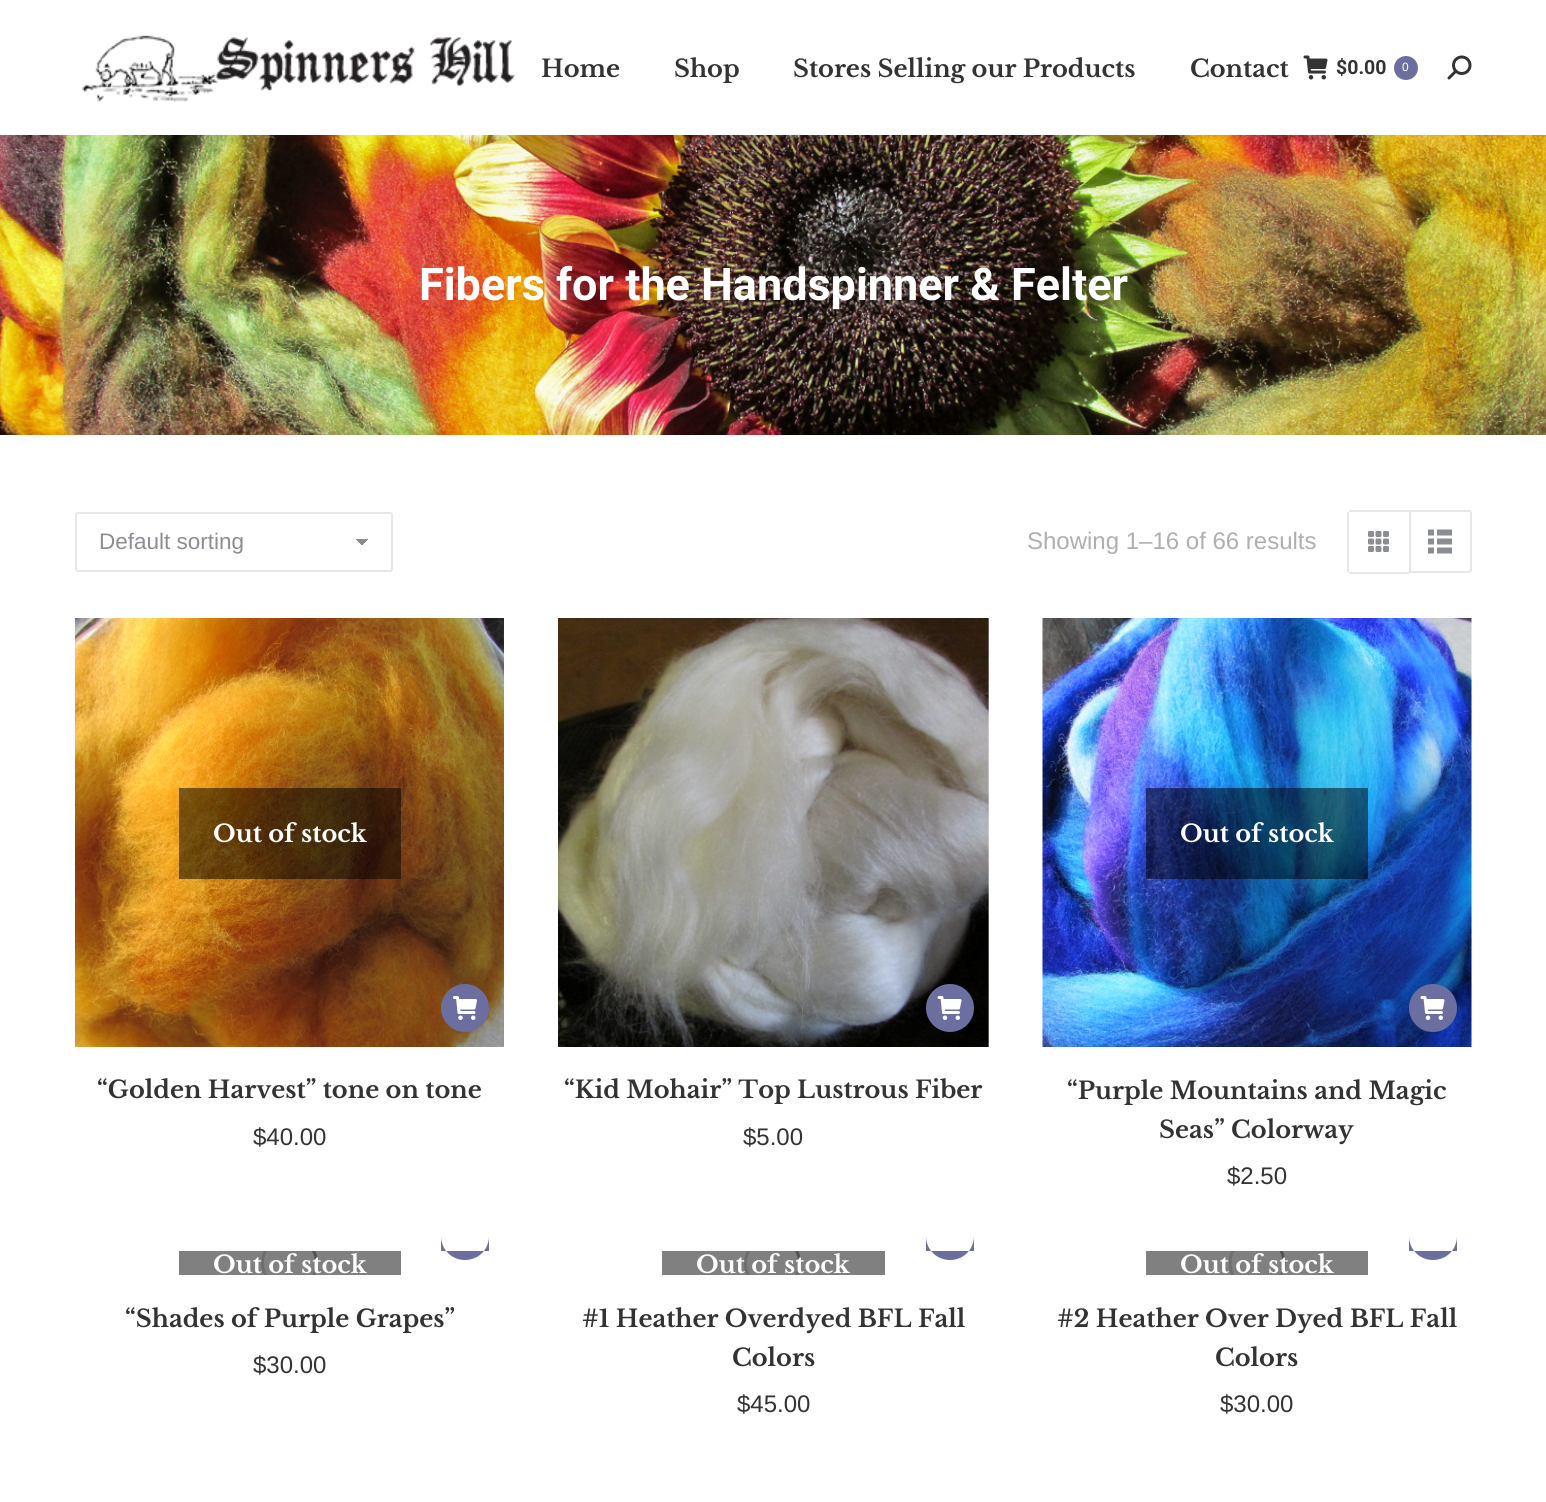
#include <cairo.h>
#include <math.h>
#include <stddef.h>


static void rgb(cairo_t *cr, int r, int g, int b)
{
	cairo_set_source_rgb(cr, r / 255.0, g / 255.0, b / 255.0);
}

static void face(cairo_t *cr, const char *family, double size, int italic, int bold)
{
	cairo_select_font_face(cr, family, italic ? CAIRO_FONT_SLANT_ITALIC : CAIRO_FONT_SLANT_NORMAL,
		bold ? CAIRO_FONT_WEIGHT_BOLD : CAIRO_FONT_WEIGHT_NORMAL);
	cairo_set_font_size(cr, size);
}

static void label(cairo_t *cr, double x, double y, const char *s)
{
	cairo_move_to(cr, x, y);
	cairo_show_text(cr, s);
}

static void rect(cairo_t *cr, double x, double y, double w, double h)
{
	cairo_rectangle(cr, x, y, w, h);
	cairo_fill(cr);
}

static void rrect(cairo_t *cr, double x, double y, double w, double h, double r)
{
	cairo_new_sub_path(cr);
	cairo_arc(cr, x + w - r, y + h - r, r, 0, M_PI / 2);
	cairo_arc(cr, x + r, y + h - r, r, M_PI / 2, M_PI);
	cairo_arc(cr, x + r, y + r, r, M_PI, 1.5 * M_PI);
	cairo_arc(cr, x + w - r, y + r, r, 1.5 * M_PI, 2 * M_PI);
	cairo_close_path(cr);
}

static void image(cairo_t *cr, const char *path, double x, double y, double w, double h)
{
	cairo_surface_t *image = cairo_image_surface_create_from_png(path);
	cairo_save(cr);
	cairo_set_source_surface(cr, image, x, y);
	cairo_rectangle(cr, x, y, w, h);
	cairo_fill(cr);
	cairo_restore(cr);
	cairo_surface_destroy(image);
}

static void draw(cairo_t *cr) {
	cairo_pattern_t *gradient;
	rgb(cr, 255, 255, 255);
	cairo_paint(cr);
	rgb(cr, 128, 128, 128);
	rect(cr, 1146, 1251, 222, 24);
	rect(cr, 662, 1251, 223, 24);
	rect(cr, 179, 1251, 222, 24);
	image(cr, "image0.png", 82, 35, 433, 68);
	face(cr, "Libre Baskerville", 24, 0, 1);
	rgb(cr, 51, 51, 51);
	label(cr, 541, 77, "Home");
	label(cr, 674, 77, "Shop");
	label(cr, 793, 77, "Stores Selling our Products");
	label(cr, 1190, 77, "Contact");
	image(cr, "image1.png", 1303, 55, 25, 25);
	face(cr, "Roboto", 19.5, 0, 1);
	label(cr, 1336, 74, "$0.00");
	rgb(cr, 108, 110, 160);
	cairo_new_path(cr);
	cairo_arc(cr, 1406, 68, 12, 0, 2 * M_PI);
	cairo_fill(cr);
	face(cr, "Liberation Sans", 12, 0, 0);
	rgb(cr, 255, 255, 255);
	label(cr, 1402, 71, "0");
	image(cr, "image2.png", 1447, 55, 25, 25);
	image(cr, "image3.png", 0, 135, 1546, 300);
	face(cr, "Roboto", 45, 0, 1);
	label(cr, 419, 300, "Fibers for the Handspinner & Felter");
	gradient = cairo_pattern_create_linear(362, 538, 369, 545);
	cairo_pattern_add_color_stop_rgba(gradient, 0.5, 0.545, 0.553, 0.58, 1);
	cairo_pattern_add_color_stop_rgba(gradient, 0.5, 0.992, 0.992, 0.992, 1);
	cairo_set_source(cr, gradient);
	cairo_pattern_destroy(gradient);
	rect(cr, 362, 539, 7, 6);
	gradient = cairo_pattern_create_linear(354, 545, 362, 538);
	cairo_pattern_add_color_stop_rgba(gradient, 0.5, 0.992, 0.992, 0.992, 1);
	cairo_pattern_add_color_stop_rgba(gradient, 0.5, 0.545, 0.553, 0.58, 1);
	cairo_set_source(cr, gradient);
	cairo_pattern_destroy(gradient);
	rect(cr, 354, 539, 8, 6);
	rrect(cr, 76, 513, 316, 58, 2);
	rgb(cr, 231, 231, 231);
	cairo_stroke(cr);
	face(cr, "Liberation Sans", 22.5, 0, 0);
	rgb(cr, 139, 141, 148);
	label(cr, 99, 549, "Default sorting");
	face(cr, "Liberation Sans", 24, 0, 0);
	rgb(cr, 173, 175, 179);
	label(cr, 1027, 549, "Showing 1–16 of 66 results");
	rgb(cr, 231, 231, 231);
	rect(cr, 1349, 510, 60, 2);
	rgb(cr, 232, 232, 232);
	rect(cr, 1349, 572, 60, 2);
	rgb(cr, 231, 231, 231);
	rect(cr, 1347, 512, 2, 60);
	image(cr, "image4.png", 1368, 531, 21, 21);
	cairo_new_path(cr);
	cairo_move_to(cr, 1410, 511);
	cairo_line_to(cr, 1469, 511);
	cairo_curve_to(cr, 1470, 511, 1471, 512, 1471, 513);
	cairo_line_to(cr, 1471, 570);
	cairo_curve_to(cr, 1471, 571, 1470, 572, 1469, 572);
	cairo_line_to(cr, 1410, 572);
	cairo_close_path(cr);
	cairo_stroke(cr);
	image(cr, "image5.png", 1428, 529, 24, 25);
	image(cr, "image6.png", 75, 618, 429, 429);
	cairo_set_source_rgba(cr, 0, 0, 0, 0.5);
	rect(cr, 179, 788, 222, 91);
	face(cr, "Libre Baskerville", 24, 0, 1);
	rgb(cr, 255, 255, 255);
	label(cr, 213, 842, "Out of stock");
	rgb(cr, 108, 110, 160);
	cairo_new_path(cr);
	cairo_arc(cr, 465, 1008, 24, 0, 2 * M_PI);
	cairo_fill(cr);
	image(cr, "image7.png", 453, 996, 24, 24);
	rgb(cr, 51, 51, 51);
	label(cr, 97, 1098, "“Golden Harvest” tone on tone");
	face(cr, "Liberation Sans", 24, 0, 0);
	label(cr, 253, 1145, "$40.00");
	image(cr, "image8.png", 558, 618, 431, 429);
	rgb(cr, 108, 110, 160);
	cairo_arc(cr, 950, 1008, 24, 0, 2 * M_PI);
	cairo_fill(cr);
	image(cr, "image9.png", 937, 996, 25, 24);
	face(cr, "Libre Baskerville", 24, 0, 1);
	rgb(cr, 51, 51, 51);
	label(cr, 564, 1098, "“Kid Mohair” Top Lustrous Fiber");
	face(cr, "Liberation Sans", 24, 0, 0);
	label(cr, 743, 1145, "$5.00");
	image(cr, "image10.png", 1042, 618, 430, 429);
	cairo_set_source_rgba(cr, 0, 0, 0, 0.5);
	rect(cr, 1146, 788, 222, 91);
	face(cr, "Libre Baskerville", 24, 0, 1);
	rgb(cr, 255, 255, 255);
	label(cr, 1180, 842, "Out of stock");
	rgb(cr, 108, 110, 160);
	cairo_new_path(cr);
	cairo_arc(cr, 1433, 1008, 24, 0, 2 * M_PI);
	cairo_fill(cr);
	image(cr, "image9.png", 1420, 996, 25, 24);
	rgb(cr, 51, 51, 51);
	label(cr, 1067, 1099, "“Purple Mountains and Magic");
	label(cr, 1159, 1138, "Seas” Colorway");
	face(cr, "Liberation Sans", 24, 0, 0);
	label(cr, 1227, 1184, "$2.50");
	cairo_save(cr);
	cairo_rectangle(cr, 261, 1251, 57, 24);
	cairo_clip(cr);
	cairo_arc(cr, 289.5, 1263, 27, 0, 2 * M_PI);
	rgb(cr, 110, 110, 110);
	cairo_set_line_width(cr, 3);
	cairo_stroke(cr);
	cairo_new_path(cr);
	cairo_move_to(cr, 316.5, 1263);
	cairo_curve_to(cr, 316.5, 1248, 304.5, 1236, 289.5, 1236);
	cairo_set_source_rgba(cr, 0, 0, 0, 0.25);
	cairo_stroke(cr);
	cairo_restore(cr);
	rgb(cr, 108, 110, 160);
	cairo_new_path(cr);
	cairo_move_to(cr, 441, 1251);
	cairo_line_to(cr, 489, 1251);
	cairo_line_to(cr, 489, 1236);
	cairo_curve_to(cr, 489, 1249.5, 478.5, 1260, 465, 1260);
	cairo_curve_to(cr, 451.5, 1260, 441, 1249.5, 441, 1236);
	cairo_close_path(cr);
	cairo_fill(cr);
	face(cr, "Libre Baskerville", 24, 0, 1);
	rgb(cr, 255, 255, 255);
	label(cr, 213, 1273, "Out of stock");
	rgb(cr, 51, 51, 51);
	label(cr, 125, 1327, "“Shades of Purple Grapes”");
	face(cr, "Liberation Sans", 24, 0, 0);
	label(cr, 253, 1373, "$30.00");
	cairo_save(cr);
	cairo_rectangle(cr, 744, 1251, 57, 24);
	cairo_clip(cr);
	cairo_arc(cr, 772.5, 1263, 27, 0, 2 * M_PI);
	rgb(cr, 110, 110, 110);
	cairo_set_line_width(cr, 3);
	cairo_stroke(cr);
	cairo_new_path(cr);
	cairo_move_to(cr, 799.5, 1263);
	cairo_curve_to(cr, 799.5, 1248, 787.5, 1236, 772.5, 1236);
	cairo_set_source_rgba(cr, 0, 0, 0, 0.25);
	cairo_stroke(cr);
	cairo_restore(cr);
	rgb(cr, 108, 110, 160);
	cairo_new_path(cr);
	cairo_move_to(cr, 926, 1251);
	cairo_line_to(cr, 974, 1251);
	cairo_line_to(cr, 974, 1236);
	cairo_curve_to(cr, 974, 1249.5, 963.5, 1260, 950, 1260);
	cairo_curve_to(cr, 936.5, 1260, 926, 1249.5, 926, 1236);
	cairo_close_path(cr);
	cairo_fill(cr);
	face(cr, "Libre Baskerville", 24, 0, 1);
	rgb(cr, 255, 255, 255);
	label(cr, 696, 1273, "Out of stock");
	rgb(cr, 51, 51, 51);
	label(cr, 582, 1327, "#1 Heather Overdyed BFL Fall");
	label(cr, 732, 1366, "Colors");
	face(cr, "Liberation Sans", 24, 0, 0);
	label(cr, 737, 1412, "$45.00");
	cairo_save(cr);
	cairo_rectangle(cr, 1229, 1251, 57, 24);
	cairo_clip(cr);
	cairo_arc(cr, 1257, 1263, 27, 0, 2 * M_PI);
	rgb(cr, 110, 110, 110);
	cairo_set_line_width(cr, 3);
	cairo_stroke(cr);
	cairo_new_path(cr);
	cairo_move_to(cr, 1284, 1263);
	cairo_curve_to(cr, 1284, 1248, 1272, 1236, 1257, 1236);
	cairo_set_source_rgba(cr, 0, 0, 0, 0.25);
	cairo_stroke(cr);
	cairo_restore(cr);
	rgb(cr, 108, 110, 160);
	cairo_new_path(cr);
	cairo_move_to(cr, 1409, 1251);
	cairo_line_to(cr, 1457, 1251);
	cairo_line_to(cr, 1457, 1236);
	cairo_curve_to(cr, 1457, 1249.5, 1446.5, 1260, 1433, 1260);
	cairo_curve_to(cr, 1419.5, 1260, 1409, 1249.5, 1409, 1236);
	cairo_close_path(cr);
	cairo_fill(cr);
	face(cr, "Libre Baskerville", 24, 0, 1);
	rgb(cr, 255, 255, 255);
	label(cr, 1180, 1273, "Out of stock");
	rgb(cr, 51, 51, 51);
	label(cr, 1057, 1327, "#2 Heather Over Dyed BFL Fall");
	label(cr, 1215, 1366, "Colors");
	face(cr, "Liberation Sans", 24, 0, 0);
	label(cr, 1220, 1412, "$30.00");
}

int main(void) {
	cairo_surface_t *surface = cairo_image_surface_create(CAIRO_FORMAT_RGB24, 1546, 1502);
	cairo_t *cr = cairo_create(surface);
	cairo_font_options_t *options = cairo_font_options_create();
	cairo_font_options_set_hint_metrics(options, CAIRO_HINT_METRICS_OFF);
	cairo_font_options_set_hint_style(options, CAIRO_HINT_STYLE_NONE);
	cairo_set_font_options(cr, options);
	cairo_set_miter_limit(cr, 4);
	draw(cr);
	cairo_surface_write_to_png(surface, "render.png");
	cairo_font_options_destroy(options);
	cairo_destroy(cr);
	cairo_surface_destroy(surface);
	return 0;
}
